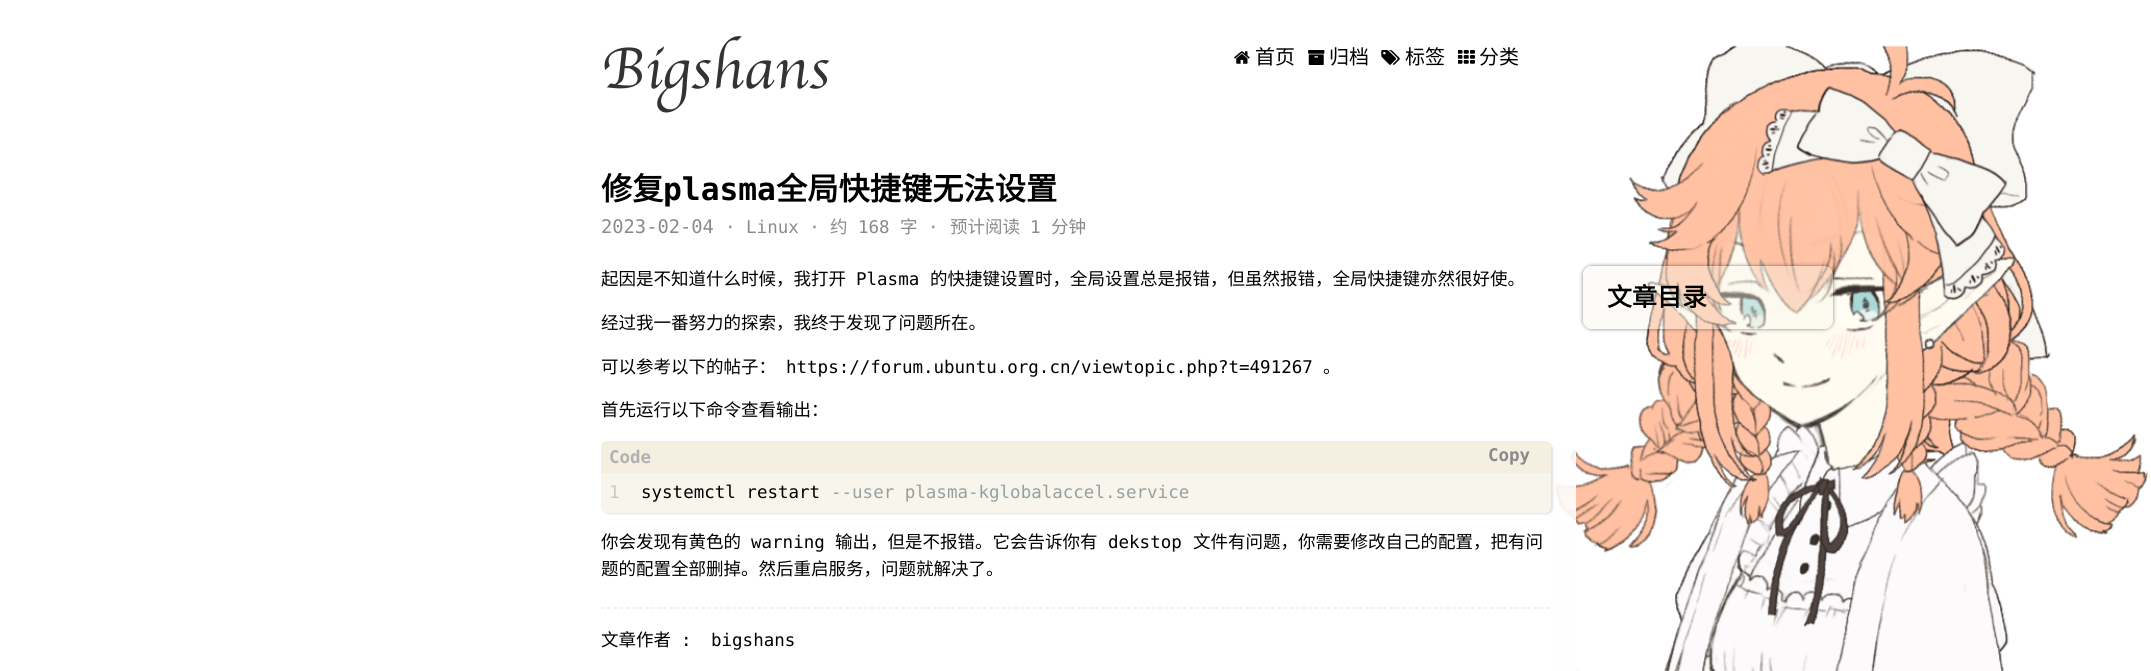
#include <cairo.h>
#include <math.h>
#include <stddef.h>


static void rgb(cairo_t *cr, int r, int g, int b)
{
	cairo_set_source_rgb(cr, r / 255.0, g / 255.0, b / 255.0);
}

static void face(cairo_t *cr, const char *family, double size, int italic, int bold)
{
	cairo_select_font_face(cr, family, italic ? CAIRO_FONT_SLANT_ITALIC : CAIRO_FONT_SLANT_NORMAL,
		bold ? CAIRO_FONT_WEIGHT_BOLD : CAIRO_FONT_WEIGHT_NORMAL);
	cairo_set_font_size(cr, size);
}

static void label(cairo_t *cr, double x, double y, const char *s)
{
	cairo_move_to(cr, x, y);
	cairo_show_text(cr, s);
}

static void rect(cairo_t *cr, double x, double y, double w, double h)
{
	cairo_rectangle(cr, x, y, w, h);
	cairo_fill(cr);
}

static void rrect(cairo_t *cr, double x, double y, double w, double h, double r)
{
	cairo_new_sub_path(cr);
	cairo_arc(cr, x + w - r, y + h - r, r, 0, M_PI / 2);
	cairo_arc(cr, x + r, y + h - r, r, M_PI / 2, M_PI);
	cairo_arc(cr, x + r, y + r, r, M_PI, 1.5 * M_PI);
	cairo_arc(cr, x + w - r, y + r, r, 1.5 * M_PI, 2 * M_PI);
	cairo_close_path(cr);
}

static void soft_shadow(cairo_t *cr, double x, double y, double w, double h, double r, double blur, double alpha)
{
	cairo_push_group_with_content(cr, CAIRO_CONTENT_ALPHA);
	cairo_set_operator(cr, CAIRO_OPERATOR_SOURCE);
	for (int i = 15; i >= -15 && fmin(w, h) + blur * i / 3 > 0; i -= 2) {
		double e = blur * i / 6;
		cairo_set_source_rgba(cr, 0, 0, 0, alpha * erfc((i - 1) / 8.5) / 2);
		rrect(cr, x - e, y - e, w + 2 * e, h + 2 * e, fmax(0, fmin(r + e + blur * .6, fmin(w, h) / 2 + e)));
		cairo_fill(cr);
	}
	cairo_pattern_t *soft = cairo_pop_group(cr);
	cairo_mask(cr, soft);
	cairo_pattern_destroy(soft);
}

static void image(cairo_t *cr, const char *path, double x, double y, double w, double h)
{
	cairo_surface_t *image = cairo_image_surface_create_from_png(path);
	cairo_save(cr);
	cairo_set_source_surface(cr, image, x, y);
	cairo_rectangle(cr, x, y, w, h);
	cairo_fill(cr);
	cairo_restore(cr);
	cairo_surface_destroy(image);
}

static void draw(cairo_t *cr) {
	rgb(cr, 255, 255, 255);
	cairo_paint(cr);
	image(cr, "image0.png", 1555, 45, 594, 626);
	cairo_set_source_rgba(cr, 0.996, 0.996, 0.996, 0.9);
	rect(cr, 1555, 448, 21, 223);
	face(cr, "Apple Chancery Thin", 60, 0, 0);
	rgb(cr, 51, 51, 51);
	label(cr, 601, 88, "Bigshans");
	image(cr, "image1.png", 1234, 51, 16, 13);
	face(cr, "Noto Sans CJK SC", 20, 0, 0);
	rgb(cr, 0, 0, 0);
	label(cr, 1255, 64, "首页");
	image(cr, "image2.png", 1308, 50, 17, 15);
	label(cr, 1329, 64, "归档");
	image(cr, "image3.png", 1381, 50, 19, 15);
	label(cr, 1405, 64, "标签");
	image(cr, "image4.png", 1458, 50, 17, 14);
	label(cr, 1479, 64, "分类");
	face(cr, "Noto Sans CJK SC", 31.25, 0, 1);
	label(cr, 601, 200, "修复");
	face(cr, "DejaVu Sans Mono", 31.25, 0, 1);
	label(cr, 663, 200, "plasma");
	face(cr, "Noto Sans CJK SC", 31.25, 0, 1);
	label(cr, 776, 200, "全局快捷键无法设置");
	face(cr, "DejaVu Sans Mono", 18.75, 0, 0);
	rgb(cr, 138, 138, 138);
	label(cr, 601, 233, "2023-02-04");
	face(cr, "DejaVu Sans Mono", 17.5, 0, 0);
	label(cr, 725, 233, "· Linux ·");
	face(cr, "Noto Sans CJK SC", 17.5, 0, 0);
	label(cr, 830, 233, "约");
	face(cr, "DejaVu Sans Mono", 17.5, 0, 0);
	label(cr, 858, 233, "168");
	face(cr, "Noto Sans CJK SC", 17.5, 0, 0);
	label(cr, 900, 233, "字");
	face(cr, "DejaVu Sans Mono", 17.5, 0, 0);
	label(cr, 928, 233, "·");
	face(cr, "Noto Sans CJK SC", 17.5, 0, 0);
	label(cr, 950, 233, "预计阅读");
	face(cr, "DejaVu Sans Mono", 17.5, 0, 0);
	label(cr, 1030, 233, "1");
	face(cr, "Noto Sans CJK SC", 17.5, 0, 0);
	label(cr, 1051, 233, "分钟");
	rgb(cr, 0, 0, 0);
	label(cr, 601, 285, "起因是不知道什么时候，我打开");
	face(cr, "DejaVu Sans Mono", 17.5, 0, 0);
	label(cr, 856, 285, "Plasma");
	face(cr, "Noto Sans CJK SC", 17.5, 0, 0);
	label(cr, 930, 285, "的快捷键设置时，全局设置总是报错，但虽然报错，全局快捷键亦然很好使。");
	label(cr, 601, 329, "经过我一番努力的探索，我终于发现了问题所在。");
	label(cr, 601, 373, "可以参考以下的帖子：");
	face(cr, "DejaVu Sans Mono", 17.5, 0, 0);
	label(cr, 786, 373, "https://forum.ubuntu.org.cn/viewtopic.php?t=491267");
	face(cr, "Noto Sans CJK SC", 17.5, 0, 0);
	label(cr, 1323, 373, "。");
	label(cr, 601, 416, "首先运行以下命令查看输出：");
	rgb(cr, 0, 0, 0);
	soft_shadow(cr, 603, 443, 950, 71, 6, 1, 0.12);
	rgb(cr, 248, 245, 236);
	cairo_new_path(cr);
	cairo_move_to(cr, 607, 441);
	cairo_line_to(cr, 629, 441);
	cairo_line_to(cr, 629, 513);
	cairo_line_to(cr, 607, 513);
	cairo_curve_to(cr, 603.5, 513, 601, 510.5, 601, 507);
	cairo_line_to(cr, 601, 447);
	cairo_curve_to(cr, 601, 443.5, 603.5, 441, 607, 441);
	cairo_close_path(cr);
	cairo_fill(cr);
	cairo_new_path(cr);
	cairo_move_to(cr, 629, 441);
	cairo_line_to(cr, 1545, 441);
	cairo_curve_to(cr, 1548.5, 441, 1551, 443.5, 1551, 447);
	cairo_line_to(cr, 1551, 507);
	cairo_curve_to(cr, 1551, 510.5, 1548.5, 513, 1545, 513);
	cairo_line_to(cr, 629, 513);
	cairo_close_path(cr);
	cairo_fill(cr);
	rgb(cr, 244, 239, 225);
	cairo_new_path(cr);
	cairo_move_to(cr, 607, 441);
	cairo_line_to(cr, 1545, 441);
	cairo_curve_to(cr, 1548.5, 441, 1551, 443.5, 1551, 447);
	cairo_line_to(cr, 1551, 473);
	cairo_line_to(cr, 601, 473);
	cairo_line_to(cr, 601, 447);
	cairo_curve_to(cr, 601, 443.5, 603.5, 441, 607, 441);
	cairo_close_path(cr);
	cairo_fill(cr);
	face(cr, "DejaVu Sans Mono", 17.5, 0, 1);
	rgb(cr, 177, 177, 177);
	label(cr, 609, 463, "Code");
	face(cr, "DejaVu Sans Mono", 17.5, 0, 0);
	rgb(cr, 202, 202, 202);
	label(cr, 609, 498, "1");
	rgb(cr, 0, 0, 0);
	label(cr, 641, 498, "systemctl restart");
	rgb(cr, 147, 161, 161);
	label(cr, 831, 498, "--user plasma-kglobalaccel.service");
	face(cr, "DejaVu Sans Mono", 17.5, 0, 1);
	rgb(cr, 138, 138, 138);
	label(cr, 1488, 461, "Copy");
	face(cr, "Noto Sans CJK SC", 17.5, 0, 0);
	rgb(cr, 0, 0, 0);
	label(cr, 601, 548, "你会发现有黄色的");
	face(cr, "DejaVu Sans Mono", 17.5, 0, 0);
	label(cr, 751, 548, "warning");
	face(cr, "Noto Sans CJK SC", 17.5, 0, 0);
	label(cr, 835, 548, "输出，但是不报错。它会告诉你有");
	face(cr, "DejaVu Sans Mono", 17.5, 0, 0);
	label(cr, 1108, 548, "dekstop");
	face(cr, "Noto Sans CJK SC", 17.5, 0, 0);
	label(cr, 1193, 548, "文件有问题，你需要修改自己的配置，把有问");
	label(cr, 601, 575, "题的配置全部删掉。然后重启服务，问题就解决了。");
	cairo_save(cr);
	cairo_set_fill_rule(cr, CAIRO_FILL_RULE_EVEN_ODD);
	cairo_new_path(cr);
	cairo_move_to(cr, 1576, 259);
	cairo_line_to(cr, 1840, 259);
	cairo_line_to(cr, 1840, 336);
	cairo_line_to(cr, 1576, 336);
	cairo_close_path(cr);
	cairo_move_to(cr, 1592, 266);
	cairo_line_to(cr, 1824, 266);
	cairo_curve_to(cr, 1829, 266, 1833, 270, 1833, 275);
	cairo_line_to(cr, 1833, 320);
	cairo_curve_to(cr, 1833, 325, 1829, 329, 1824, 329);
	cairo_line_to(cr, 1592, 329);
	cairo_curve_to(cr, 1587, 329, 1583, 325, 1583, 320);
	cairo_line_to(cr, 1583, 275);
	cairo_curve_to(cr, 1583, 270, 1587, 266, 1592, 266);
	cairo_close_path(cr);
	cairo_clip(cr);
	rgb(cr, 0, 0, 0);
	soft_shadow(cr, 1583, 266, 250, 63, 9, 2, 0.5);
	cairo_restore(cr);
	cairo_set_source_rgba(cr, 0.973, 0.961, 0.925, 0.4);
	rrect(cr, 1583, 266, 250, 63, 9);
	cairo_fill(cr);
	face(cr, "Noto Sans CJK SC", 25, 0, 1);
	rgb(cr, 0, 0, 0);
	label(cr, 1607, 306, "文章目录");
	cairo_new_path(cr);
	cairo_move_to(cr, 601, 608);
	cairo_line_to(cr, 1551, 608);
	rgb(cr, 230, 230, 230);
	cairo_set_line_width(cr, 1.2);
	cairo_set_dash(cr, (double[]){3.75, 2.51}, 2, 0);
	cairo_stroke(cr);
	face(cr, "Noto Sans CJK SC", 17.5, 0, 0);
	rgb(cr, 0, 0, 0);
	label(cr, 601, 646, "文章作者");
	face(cr, "DejaVu Sans Mono", 17.5, 0, 0);
	label(cr, 681, 646, ":");
	label(cr, 711, 646, "bigshans");
}

int main(void) {
	cairo_surface_t *surface = cairo_image_surface_create(CAIRO_FORMAT_RGB24, 2151, 671);
	cairo_t *cr = cairo_create(surface);
	cairo_font_options_t *options = cairo_font_options_create();
	cairo_font_options_set_hint_metrics(options, CAIRO_HINT_METRICS_OFF);
	cairo_font_options_set_hint_style(options, CAIRO_HINT_STYLE_NONE);
	cairo_set_font_options(cr, options);
	cairo_set_miter_limit(cr, 4);
	draw(cr);
	cairo_surface_write_to_png(surface, "render.png");
	cairo_font_options_destroy(options);
	cairo_destroy(cr);
	cairo_surface_destroy(surface);
	return 0;
}
